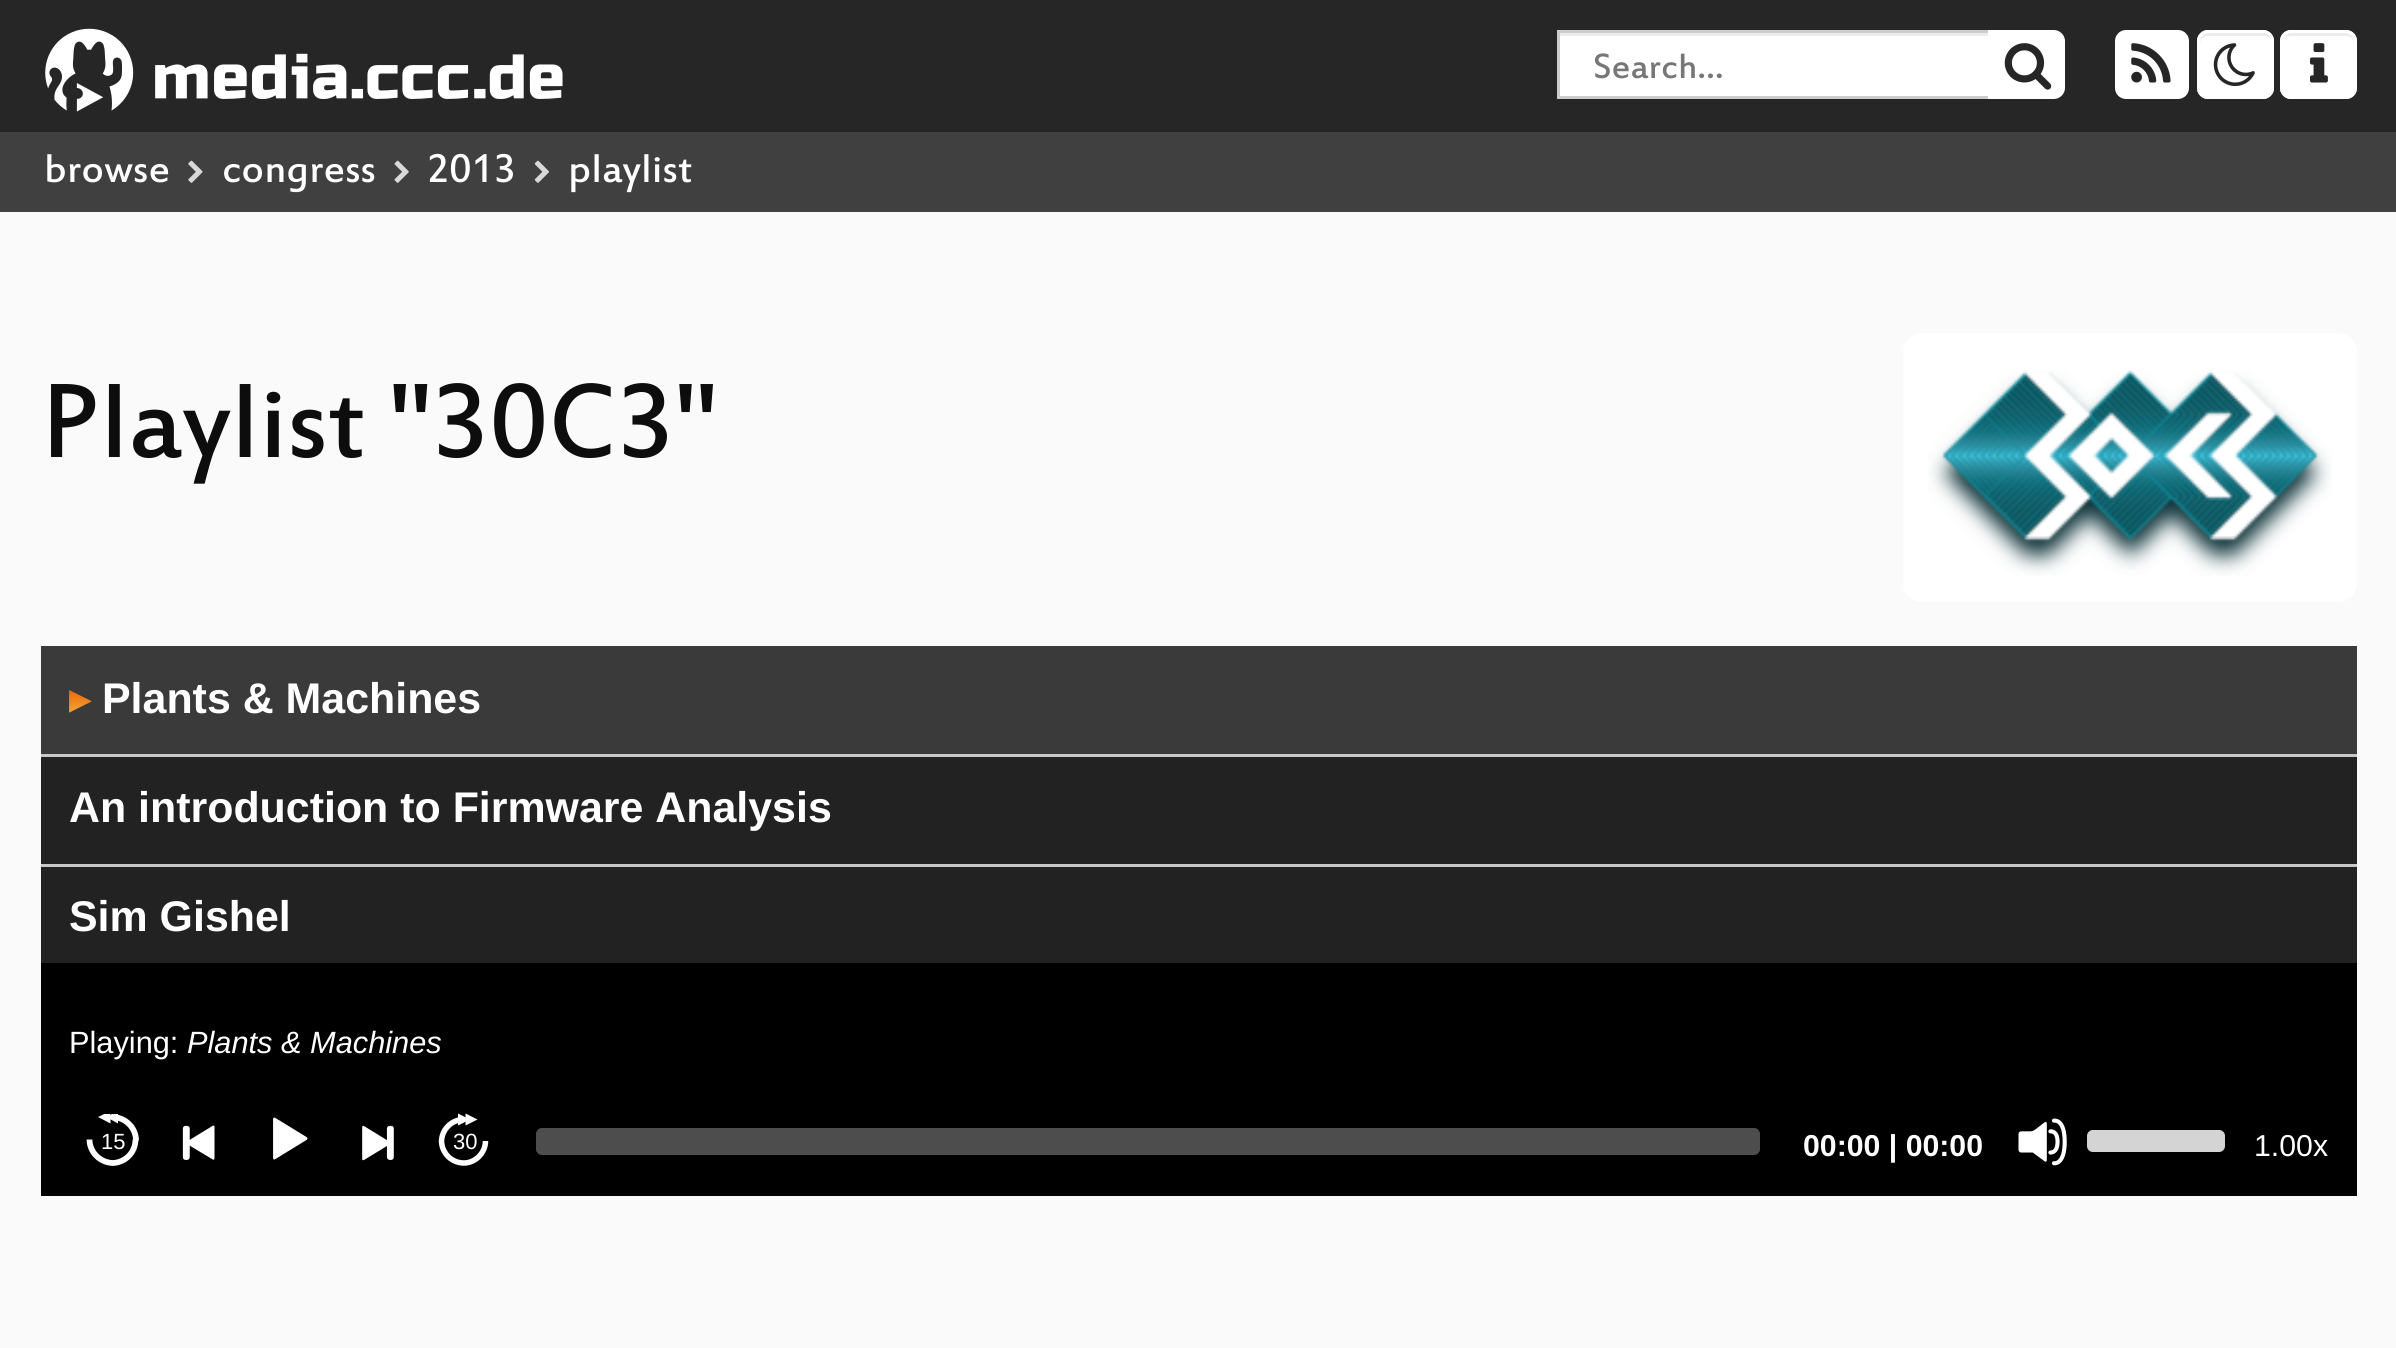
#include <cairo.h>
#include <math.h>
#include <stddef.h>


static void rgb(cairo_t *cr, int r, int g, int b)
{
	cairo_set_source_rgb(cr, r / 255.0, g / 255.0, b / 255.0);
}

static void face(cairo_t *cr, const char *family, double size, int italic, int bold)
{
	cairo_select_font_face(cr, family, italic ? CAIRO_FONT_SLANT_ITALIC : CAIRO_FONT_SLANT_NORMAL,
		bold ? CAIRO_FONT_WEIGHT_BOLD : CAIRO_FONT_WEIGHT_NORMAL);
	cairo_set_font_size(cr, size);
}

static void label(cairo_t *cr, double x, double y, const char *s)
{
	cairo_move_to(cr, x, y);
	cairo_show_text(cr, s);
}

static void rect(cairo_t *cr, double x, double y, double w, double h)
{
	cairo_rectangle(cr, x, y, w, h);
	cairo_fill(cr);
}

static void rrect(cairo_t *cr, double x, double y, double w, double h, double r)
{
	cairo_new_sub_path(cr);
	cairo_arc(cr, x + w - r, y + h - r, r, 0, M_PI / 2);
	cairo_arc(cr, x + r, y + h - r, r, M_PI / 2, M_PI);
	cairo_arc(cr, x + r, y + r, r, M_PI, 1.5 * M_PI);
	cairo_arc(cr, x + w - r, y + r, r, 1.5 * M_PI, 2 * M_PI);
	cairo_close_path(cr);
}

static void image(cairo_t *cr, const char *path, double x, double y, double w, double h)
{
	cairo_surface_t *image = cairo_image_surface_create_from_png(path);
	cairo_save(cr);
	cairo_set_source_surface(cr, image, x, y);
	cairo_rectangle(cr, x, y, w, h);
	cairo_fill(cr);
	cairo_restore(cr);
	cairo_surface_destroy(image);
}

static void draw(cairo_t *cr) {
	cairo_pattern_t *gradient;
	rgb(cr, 250, 250, 250);
	cairo_paint(cr);
	rgb(cr, 38, 38, 38);
	rect(cr, 0, 0, 2396, 132);
	image(cr, "image0.png", 45, 28, 518, 84);
	rgb(cr, 255, 255, 255);
	rect(cr, 1560, 36, 428, 60);
	rgb(cr, 236, 236, 236);
	rect(cr, 1559, 33, 429, 3);
	cairo_rectangle(cr, 1558.5, 31.5, 431, 66);
	rgb(cr, 204, 204, 204);
	cairo_set_line_width(cr, 3);
	cairo_stroke(cr);
	face(cr, "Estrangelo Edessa", 38.5, 0, 0);
	rgb(cr, 119, 119, 119);
	label(cr, 1593, 78, "Search…");
	rgb(cr, 255, 255, 255);
	cairo_new_path(cr);
	cairo_move_to(cr, 1989.5, 31.5);
	cairo_line_to(cr, 2054, 31.5);
	cairo_curve_to(cr, 2059, 31.5, 2063.5, 36, 2063.5, 41);
	cairo_line_to(cr, 2063.5, 88);
	cairo_curve_to(cr, 2063.5, 93, 2059, 97.5, 2054, 97.5);
	cairo_line_to(cr, 1989.5, 97.5);
	cairo_close_path(cr);
	cairo_fill_preserve(cr);
	cairo_stroke(cr);
	image(cr, "image1.png", 2004, 43, 48, 47);
	rrect(cr, 2116.5, 31.5, 71, 66, 9.5);
	cairo_fill_preserve(cr);
	cairo_stroke(cr);
	image(cr, "image2.png", 2131, 43, 40, 40);
	rrect(cr, 2197, 30, 77, 69, 11);
	cairo_fill(cr);
	rgb(cr, 236, 236, 236);
	cairo_new_path(cr);
	cairo_move_to(cr, 2208, 36);
	cairo_line_to(cr, 2263, 36);
	cairo_curve_to(cr, 2268, 36, 2272, 39, 2272, 44);
	cairo_curve_to(cr, 2272, 32, 2265, 33, 2255, 33);
	cairo_line_to(cr, 2217, 33);
	cairo_curve_to(cr, 2207, 33, 2200, 32, 2200, 44);
	cairo_curve_to(cr, 2200, 39, 2204, 36, 2208, 36);
	cairo_close_path(cr);
	cairo_fill(cr);
	rrect(cr, 2198.5, 31.5, 74, 66, 9.5);
	rgb(cr, 255, 255, 255);
	cairo_stroke(cr);
	image(cr, "image3.png", 2213, 43, 42, 44);
	rrect(cr, 2280, 30, 77, 69, 11);
	cairo_fill(cr);
	rgb(cr, 236, 236, 236);
	cairo_new_path(cr);
	cairo_move_to(cr, 2291, 36);
	cairo_line_to(cr, 2346, 36);
	cairo_curve_to(cr, 2350, 36, 2354, 39, 2354, 44);
	cairo_line_to(cr, 2354, 41);
	cairo_curve_to(cr, 2354, 37, 2350, 33, 2346, 33);
	cairo_line_to(cr, 2291, 33);
	cairo_curve_to(cr, 2287, 33, 2284, 36, 2283, 40);
	cairo_curve_to(cr, 2285, 37, 2288, 36, 2291, 36);
	cairo_close_path(cr);
	cairo_fill(cr);
	rrect(cr, 2281.5, 31.5, 74, 66, 9.5);
	rgb(cr, 255, 255, 255);
	cairo_stroke(cr);
	image(cr, "image4.png", 2310, 43, 18, 40);
	rgb(cr, 64, 64, 64);
	rect(cr, 0, 132, 2396, 80);
	face(cr, "Estrangelo Edessa", 44, 0, 0);
	rgb(cr, 255, 255, 255);
	label(cr, 44, 182, "browse");
	image(cr, "image5.png", 188, 160, 15, 23);
	label(cr, 222, 182, "congress");
	image(cr, "image6.png", 394, 160, 15, 23);
	label(cr, 427, 182, "2013");
	image(cr, "image7.png", 534, 160, 15, 23);
	label(cr, 568, 182, "playlist");
	face(cr, "Estrangelo Edessa", 115.5, 0, 0);
	rgb(cr, 13, 13, 13);
	label(cr, 41, 457, "Playlist \"30C3\"");
	rgb(cr, 255, 255, 255);
	rrect(cr, 1903, 333, 454, 269, 19);
	cairo_fill(cr);
	image(cr, "image8.png", 1928, 370, 404, 206);
	rgb(cr, 0, 0, 0);
	rect(cr, 41, 963, 2316, 233);
	rgb(cr, 34, 34, 34);
	rect(cr, 41, 757, 2316, 206);
	rgb(cr, 58, 58, 58);
	rect(cr, 41, 646, 2316, 108);
	rgb(cr, 200, 200, 200);
	rect(cr, 41, 754, 2316, 3);
	face(cr, "DejaVu Sans", 28, 0, 1);
	gradient = cairo_pattern_create_linear(79, 685, 79, 715);
	cairo_pattern_add_color_stop_rgba(gradient, 0, 0.922, 0.345, 0.008, 1);
	cairo_pattern_add_color_stop_rgba(gradient, 1, 0.953, 0.678, 0.224, 1);
	cairo_set_source(cr, gradient);
	cairo_pattern_destroy(gradient);
	label(cr, 69, 709, "▶");
	face(cr, "Liberation Sans", 42.9, 0, 1);
	rgb(cr, 255, 255, 255);
	label(cr, 102, 713, "Plants & Machines");
	rgb(cr, 200, 200, 200);
	rect(cr, 41, 864, 2316, 3);
	rgb(cr, 255, 255, 255);
	label(cr, 69, 822, "An introduction to Firmware Analysis");
	label(cr, 69, 931, "Sim Gishel");
	face(cr, "Liberation Sans", 30.75, 0, 0);
	label(cr, 69, 1053, "Playing:");
	face(cr, "Liberation Sans", 30.75, 1, 0);
	label(cr, 187, 1053, "Plants & Machines");
	cairo_save(cr);
	cairo_rectangle(cr, 85, 1114, 55, 52);
	cairo_clip(cr);
	cairo_new_path(cr);
	cairo_move_to(cr, 118, 1111);
	cairo_line_to(cr, 118, 1123.5);
	cairo_line_to(cr, 106, 1117);
	cairo_close_path(cr);
	cairo_fill(cr);
	cairo_new_path(cr);
	cairo_move_to(cr, 110.5, 1111);
	cairo_line_to(cr, 110.5, 1123.5);
	cairo_line_to(cr, 98, 1117);
	cairo_close_path(cr);
	cairo_fill(cr);
	cairo_restore(cr);
	cairo_new_path(cr);
	cairo_move_to(cr, 136, 1140.5);
	cairo_curve_to(cr, 136, 1127.5, 125, 1117, 112, 1117);
	cairo_move_to(cr, 112, 1163);
	cairo_curve_to(cr, 125, 1163, 135.5, 1152.5, 135.5, 1139.5);
	cairo_move_to(cr, 89.5, 1139.5);
	cairo_curve_to(cr, 89.5, 1152.5, 100.5, 1163, 113.5, 1163);
	cairo_set_line_width(cr, 5.8);
	cairo_stroke(cr);
	face(cr, "Liberation Sans", 22, 0, 0);
	label(cr, 101, 1149, "15");
	image(cr, "image9.png", 182, 1125, 33, 35);
	image(cr, "image10.png", 273, 1117, 35, 43);
	image(cr, "image11.png", 362, 1125, 32, 36);
	cairo_new_path(cr);
	cairo_move_to(cr, 470, 1119.5);
	cairo_line_to(cr, 458, 1125.5);
	cairo_line_to(cr, 458, 1113.5);
	cairo_close_path(cr);
	cairo_fill(cr);
	cairo_new_path(cr);
	cairo_move_to(cr, 477.5, 1119.5);
	cairo_line_to(cr, 465.5, 1125.5);
	cairo_line_to(cr, 465.5, 1113.5);
	cairo_close_path(cr);
	cairo_fill(cr);
	cairo_new_path(cr);
	cairo_move_to(cr, 464, 1119.5);
	cairo_curve_to(cr, 451.5, 1119.5, 441.5, 1129.5, 441.5, 1142);
	cairo_move_to(cr, 441.5, 1140.5);
	cairo_curve_to(cr, 441.5, 1153, 451.5, 1163, 464, 1163);
	cairo_move_to(cr, 463, 1163);
	cairo_curve_to(cr, 475, 1163.5, 485.5, 1153, 485.5, 1141);
	cairo_set_line_width(cr, 5.5);
	cairo_stroke(cr);
	label(cr, 453, 1149, "30");
	rgb(cr, 77, 77, 77);
	rrect(cr, 536, 1128, 1224, 27, 6);
	cairo_fill(cr);
	face(cr, "Liberation Sans", 30.25, 0, 1);
	rgb(cr, 255, 255, 255);
	label(cr, 1803, 1156, "00:00 | 00:00");
	image(cr, "image12.png", 2018, 1118, 49, 48);
	rgb(cr, 40, 40, 40);
	rrect(cr, 2087, 1130, 138, 22, 6);
	cairo_fill(cr);
	cairo_set_source_rgba(cr, 1, 1, 1, 0.8);
	rrect(cr, 2087, 1130, 138, 22, 6);
	cairo_fill(cr);
	face(cr, "Liberation Sans", 30.25, 0, 0);
	rgb(cr, 255, 255, 255);
	label(cr, 2254, 1156, "1.00x");
}

int main(void) {
	cairo_surface_t *surface = cairo_image_surface_create(CAIRO_FORMAT_RGB24, 2396, 1348);
	cairo_t *cr = cairo_create(surface);
	cairo_font_options_t *options = cairo_font_options_create();
	cairo_font_options_set_hint_metrics(options, CAIRO_HINT_METRICS_OFF);
	cairo_font_options_set_hint_style(options, CAIRO_HINT_STYLE_NONE);
	cairo_set_font_options(cr, options);
	cairo_set_miter_limit(cr, 4);
	draw(cr);
	cairo_surface_write_to_png(surface, "render.png");
	cairo_font_options_destroy(options);
	cairo_destroy(cr);
	cairo_surface_destroy(surface);
	return 0;
}
